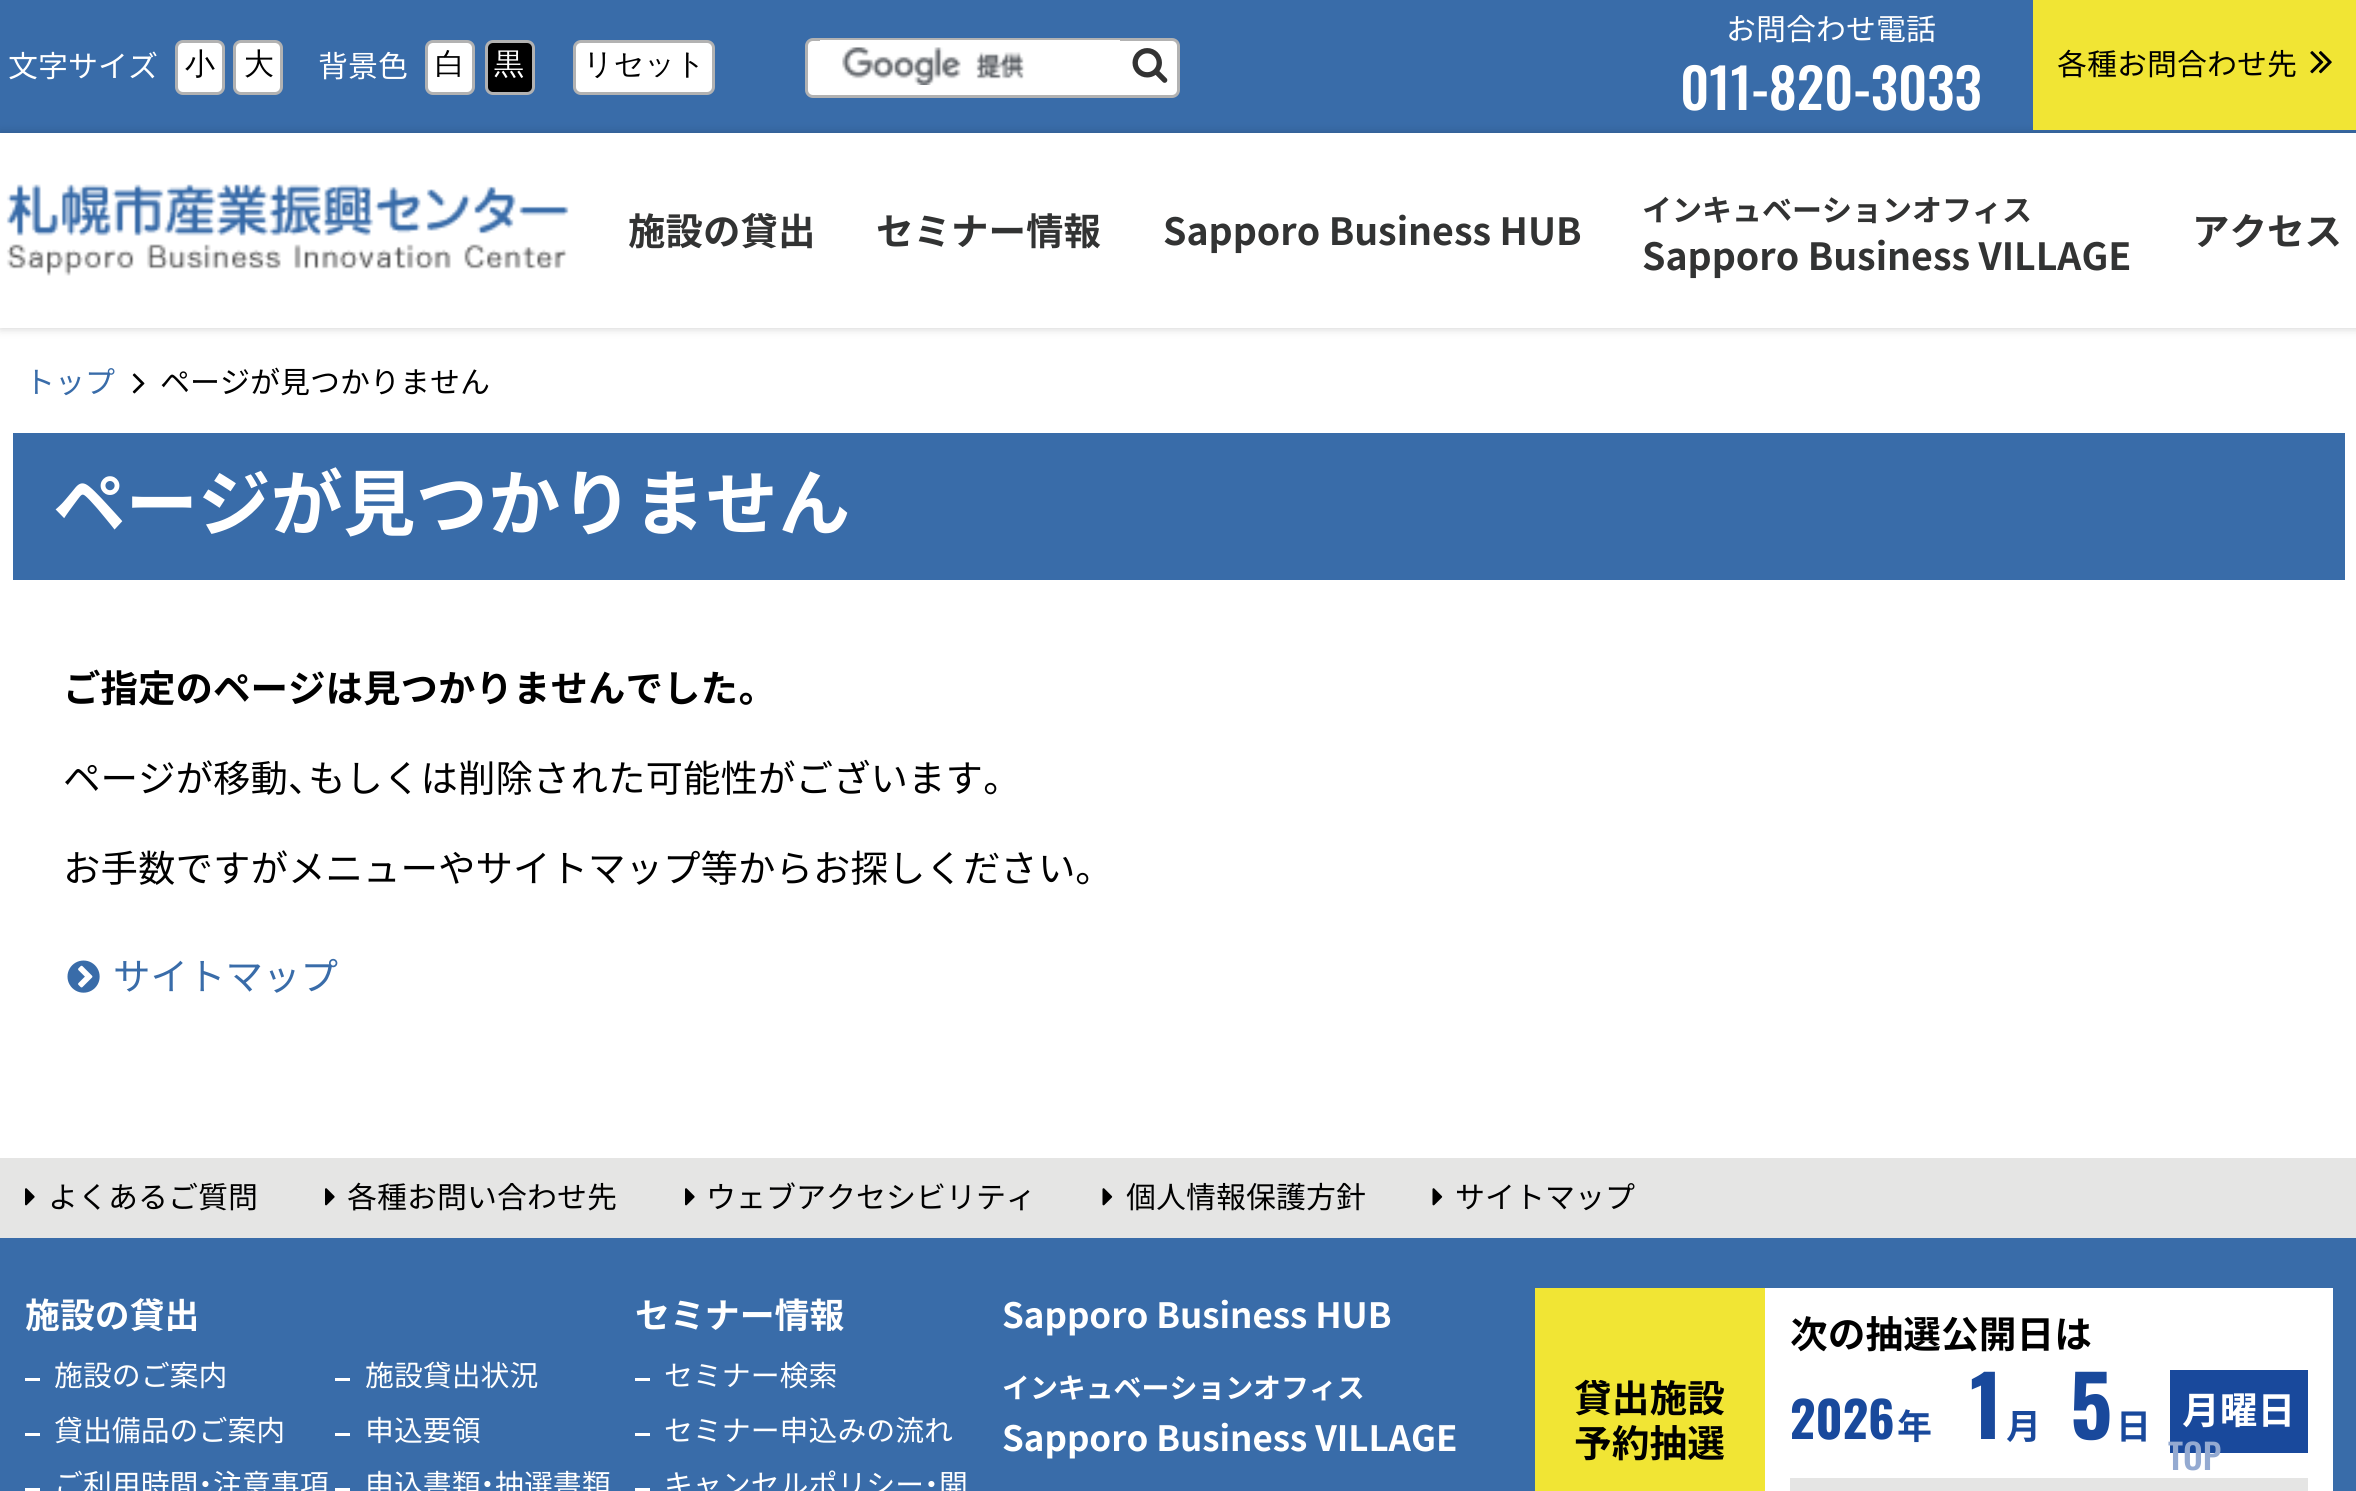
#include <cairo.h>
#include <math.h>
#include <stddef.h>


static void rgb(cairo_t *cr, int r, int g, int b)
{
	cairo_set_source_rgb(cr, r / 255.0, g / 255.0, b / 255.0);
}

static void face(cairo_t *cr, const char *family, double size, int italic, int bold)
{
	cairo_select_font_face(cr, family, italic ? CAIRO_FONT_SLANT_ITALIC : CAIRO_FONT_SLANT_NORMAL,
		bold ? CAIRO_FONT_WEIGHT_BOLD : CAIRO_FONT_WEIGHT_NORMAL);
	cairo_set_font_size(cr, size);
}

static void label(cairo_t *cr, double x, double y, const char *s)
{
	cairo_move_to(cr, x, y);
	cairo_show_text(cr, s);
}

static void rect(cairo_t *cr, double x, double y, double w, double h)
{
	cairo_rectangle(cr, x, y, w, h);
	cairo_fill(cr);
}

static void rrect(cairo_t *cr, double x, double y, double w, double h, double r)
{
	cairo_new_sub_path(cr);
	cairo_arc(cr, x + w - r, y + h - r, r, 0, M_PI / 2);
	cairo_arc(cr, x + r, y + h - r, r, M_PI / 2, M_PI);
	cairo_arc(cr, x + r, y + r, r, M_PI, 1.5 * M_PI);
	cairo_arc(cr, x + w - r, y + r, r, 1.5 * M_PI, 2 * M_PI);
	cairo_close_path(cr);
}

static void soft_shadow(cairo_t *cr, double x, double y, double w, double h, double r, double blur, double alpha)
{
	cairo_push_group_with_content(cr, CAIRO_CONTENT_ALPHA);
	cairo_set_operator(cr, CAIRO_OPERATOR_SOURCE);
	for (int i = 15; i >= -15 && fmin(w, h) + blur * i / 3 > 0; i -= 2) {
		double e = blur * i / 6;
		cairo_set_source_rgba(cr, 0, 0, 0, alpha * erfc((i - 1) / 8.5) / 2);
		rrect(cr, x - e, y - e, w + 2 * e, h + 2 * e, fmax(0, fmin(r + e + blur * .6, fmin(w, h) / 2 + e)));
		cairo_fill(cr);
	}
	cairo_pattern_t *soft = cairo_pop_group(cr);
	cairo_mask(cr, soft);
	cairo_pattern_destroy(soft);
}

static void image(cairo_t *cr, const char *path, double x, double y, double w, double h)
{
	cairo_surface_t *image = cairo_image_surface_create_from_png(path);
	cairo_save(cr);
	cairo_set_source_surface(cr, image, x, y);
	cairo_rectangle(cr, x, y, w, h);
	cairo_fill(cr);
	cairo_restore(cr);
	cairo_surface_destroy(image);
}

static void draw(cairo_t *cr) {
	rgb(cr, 255, 255, 255);
	cairo_paint(cr);
	rgb(cr, 57, 108, 169);
	rect(cr, 0, 0, 2356, 133);
	face(cr, "Noto Sans JP", 30, 0, 0);
	rgb(cr, 255, 255, 255);
	label(cr, 8, 77, "文字サイズ");
	rrect(cr, 176.5, 41.5, 47, 52, 6.5);
	cairo_fill_preserve(cr);
	rgb(cr, 178, 178, 178);
	cairo_set_line_width(cr, 3);
	cairo_stroke(cr);
	face(cr, "WenQuanYi Zen Hei Medium", 30, 0, 0);
	rgb(cr, 0, 0, 0);
	label(cr, 185, 74, "小");
	rgb(cr, 255, 255, 255);
	rrect(cr, 234.5, 41.5, 47, 52, 6.5);
	cairo_fill_preserve(cr);
	rgb(cr, 178, 178, 178);
	cairo_stroke(cr);
	rgb(cr, 0, 0, 0);
	label(cr, 244, 74, "大");
	face(cr, "Noto Sans JP", 30, 0, 0);
	rgb(cr, 255, 255, 255);
	label(cr, 318, 77, "背景色");
	rrect(cr, 426.5, 41.5, 47, 52, 6.5);
	cairo_fill_preserve(cr);
	rgb(cr, 178, 178, 178);
	cairo_stroke(cr);
	face(cr, "WenQuanYi Zen Hei Medium", 30, 0, 0);
	rgb(cr, 0, 0, 0);
	label(cr, 435, 74, "白");
	rrect(cr, 486.5, 41.5, 47, 52, 6.5);
	cairo_fill_preserve(cr);
	rgb(cr, 178, 178, 178);
	cairo_stroke(cr);
	rgb(cr, 255, 255, 255);
	label(cr, 494, 74, "黒");
	rrect(cr, 574.5, 41.5, 139, 52, 6.5);
	cairo_fill_preserve(cr);
	rgb(cr, 178, 178, 178);
	cairo_stroke(cr);
	rgb(cr, 0, 0, 0);
	label(cr, 583, 74, "リセット");
	rgb(cr, 255, 255, 255);
	rrect(cr, 806.5, 39.5, 372, 57, 6.5);
	cairo_fill_preserve(cr);
	rgb(cr, 178, 178, 178);
	cairo_stroke(cr);
	rgb(cr, 255, 255, 255);
	rect(cr, 820, 40, 300, 1);
	image(cr, "image0.png", 842, 47, 183, 38);
	image(cr, "image1.png", 1132, 48, 36, 35);
	face(cr, "Noto Sans JP", 30, 0, 0);
	label(cr, 1726, 40, "お問合わせ電話");
	face(cr, "Oswald Medium", 55, 0, 0);
	label(cr, 1680, 110, "011-820-3033");
	cairo_save(cr);
	cairo_set_fill_rule(cr, CAIRO_FILL_RULE_EVEN_ODD);
	cairo_new_path(cr);
	cairo_move_to(cr, 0, 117);
	cairo_line_to(cr, 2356, 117);
	cairo_line_to(cr, 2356, 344);
	cairo_line_to(cr, 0, 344);
	cairo_close_path(cr);
	cairo_move_to(cr, 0, 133);
	cairo_line_to(cr, 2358, 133);
	cairo_line_to(cr, 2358, 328);
	cairo_line_to(cr, 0, 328);
	cairo_close_path(cr);
	cairo_clip(cr);
	rgb(cr, 4, 0, 0);
	soft_shadow(cr, 0, 133, 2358, 195, 0, 5, 0.2);
	cairo_restore(cr);
	rgb(cr, 241, 229, 52);
	rect(cr, 2033, 0, 323, 130);
	face(cr, "Noto Sans JP", 30, 0, 0);
	rgb(cr, 0, 0, 0);
	label(cr, 2057, 75, "各種お問合わせ先");
	image(cr, "image2.png", 2310, 51, 22, 23);
	cairo_set_source_rgba(cr, 1, 1, 1, 0.7);
	rect(cr, 0, 327, 2356, 1);
	image(cr, "image3.png", 6, 184, 563, 92);
	face(cr, "Noto Sans JP", 37.5, 0, 1);
	rgb(cr, 50, 51, 51);
	label(cr, 628, 245, "施設の貸出");
	label(cr, 876, 245, "セミナー情報");
	label(cr, 1163, 245, "Sapporo Business HUB");
	face(cr, "Noto Sans JP", 30, 0, 1);
	label(cr, 1642, 221, "インキュベーションオフィス");
	face(cr, "Noto Sans JP", 37.5, 0, 1);
	label(cr, 1642, 270, "Sapporo Business VILLAGE");
	label(cr, 2192, 245, "アクセス");
	face(cr, "Noto Sans JP", 30, 0, 0);
	rgb(cr, 57, 108, 169);
	label(cr, 25, 393, "トップ");
	image(cr, "image4.png", 132, 373, 13, 21);
	rgb(cr, 0, 0, 0);
	label(cr, 160, 393, "ページが見つかりません");
	rgb(cr, 57, 108, 169);
	rect(cr, 13, 433, 2332, 147);
	face(cr, "Noto Sans JP", 72.5, 0, 1);
	rgb(cr, 255, 255, 255);
	label(cr, 53, 530, "ページが見つかりません");
	face(cr, "Noto Sans JP", 37.5, 0, 1);
	rgb(cr, 0, 0, 0);
	label(cr, 63, 702, "ご指定のページは見つかりませんでした");
	face(cr, "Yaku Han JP", 37.5, 0, 1);
	label(cr, 738, 702, "。");
	face(cr, "Noto Sans JP", 37.5, 0, 0);
	label(cr, 63, 792, "ページが移動");
	face(cr, "Yaku Han JP", 37.5, 0, 0);
	label(cr, 288, 792, "、");
	face(cr, "Noto Sans JP", 37.5, 0, 0);
	label(cr, 308, 792, "もしくは削除された可能性がございます");
	face(cr, "Yaku Han JP", 37.5, 0, 0);
	label(cr, 983, 792, "。");
	face(cr, "Noto Sans JP", 37.5, 0, 0);
	label(cr, 63, 882, "お手数ですがメニューやサイトマップ等からお探しください");
	face(cr, "Yaku Han JP", 37.5, 0, 0);
	label(cr, 1075, 882, "。");
	image(cr, "image5.png", 67, 960, 33, 33);
	face(cr, "Noto Sans JP", 37.5, 0, 0);
	rgb(cr, 57, 108, 169);
	label(cr, 113, 990, "サイトマップ");
	rect(cr, 0, 1238, 2356, 253);
	rgb(cr, 229, 229, 228);
	rect(cr, 0, 1158, 2356, 80);
	image(cr, "image6.png", 25, 1188, 10, 18);
	face(cr, "Noto Sans JP", 30, 0, 0);
	rgb(cr, 0, 0, 0);
	label(cr, 48, 1208, "よくあるご質問");
	image(cr, "image6.png", 325, 1188, 10, 18);
	label(cr, 347, 1208, "各種お問い合わせ先");
	image(cr, "image6.png", 685, 1188, 10, 18);
	label(cr, 706, 1208, "ウェブアクセシビリティ");
	image(cr, "image7.png", 1102, 1188, 11, 18);
	label(cr, 1126, 1208, "個人情報保護方針");
	image(cr, "image7.png", 1432, 1188, 11, 18);
	label(cr, 1455, 1208, "サイトマップ");
	face(cr, "Noto Sans JP", 34.9, 0, 1);
	rgb(cr, 255, 255, 255);
	label(cr, 25, 1328, "施設の貸出");
	rect(cr, 25, 1378, 15, 3);
	face(cr, "Noto Sans JP", 28.9, 0, 0);
	label(cr, 54, 1386, "施設のご案内");
	rect(cr, 335, 1378, 15, 3);
	label(cr, 365, 1386, "施設貸出状況");
	rect(cr, 25, 1433, 15, 3);
	label(cr, 54, 1441, "貸出備品のご案内");
	rect(cr, 335, 1433, 15, 3);
	label(cr, 365, 1441, "申込要領");
	label(cr, 54, 1495, "ご利用時間");
	face(cr, "Yaku Han JP", 28.9, 0, 0);
	label(cr, 198, 1495, "・");
	face(cr, "Noto Sans JP", 28.9, 0, 0);
	label(cr, 213, 1495, "注意事項");
	rect(cr, 25, 1488, 15, 3);
	label(cr, 365, 1495, "申込書類");
	face(cr, "Yaku Han JP", 28.9, 0, 0);
	label(cr, 480, 1495, "・");
	face(cr, "Noto Sans JP", 28.9, 0, 0);
	label(cr, 495, 1495, "抽選書類");
	rect(cr, 335, 1488, 15, 3);
	face(cr, "Noto Sans JP", 34.9, 0, 1);
	label(cr, 635, 1328, "セミナー情報");
	rect(cr, 635, 1378, 15, 3);
	face(cr, "Noto Sans JP", 28.9, 0, 0);
	label(cr, 664, 1386, "セミナー検索");
	rect(cr, 635, 1433, 15, 3);
	label(cr, 664, 1441, "セミナー申込みの流れ");
	label(cr, 664, 1495, "キャンセルポリシー");
	face(cr, "Yaku Han JP", 28.9, 0, 0);
	label(cr, 924, 1495, "・");
	face(cr, "Noto Sans JP", 28.9, 0, 0);
	label(cr, 939, 1495, "開");
	rect(cr, 635, 1488, 15, 3);
	face(cr, "Noto Sans JP", 34.9, 0, 1);
	label(cr, 1002, 1328, "Sapporo Business HUB");
	face(cr, "Noto Sans JP", 27.9, 0, 1);
	label(cr, 1002, 1398, "インキュベーションオフィス");
	face(cr, "Noto Sans JP", 34.9, 0, 1);
	label(cr, 1002, 1451, "Sapporo Business VILLAGE");
	rect(cr, 1765, 1288, 568, 203);
	rgb(cr, 241, 229, 52);
	rect(cr, 1535, 1288, 230, 203);
	face(cr, "Noto Sans JP", 37.75, 0, 1);
	rgb(cr, 0, 0, 0);
	label(cr, 1574, 1412, "貸出施設");
	label(cr, 1574, 1457, "予約抽選");
	label(cr, 1790, 1348, "次の抽選公開日は");
	face(cr, "Oswald", 49.5, 0, 1);
	rgb(cr, 25, 73, 156);
	label(cr, 1790, 1439, "2026");
	face(cr, "Noto Sans JP", 35, 0, 1);
	label(cr, 1897, 1439, "年");
	face(cr, "Oswald", 83, 0, 1);
	label(cr, 1970, 1439, "1");
	face(cr, "Noto Sans JP", 35, 0, 1);
	label(cr, 2006, 1439, "月");
	face(cr, "Oswald", 83, 0, 1);
	label(cr, 2070, 1439, "5");
	face(cr, "Noto Sans JP", 35, 0, 1);
	label(cr, 2116, 1439, "日");
	rect(cr, 2170, 1370, 138, 83);
	face(cr, "Noto Sans JP", 37.75, 0, 1);
	rgb(cr, 255, 255, 255);
	label(cr, 2182, 1424, "月曜日");
	rgb(cr, 229, 229, 228);
	rect(cr, 1790, 1478, 518, 13);
	face(cr, "Oswald Medium", 35, 0, 0);
	rgb(cr, 148, 170, 209);
	label(cr, 2168, 1470, "TOP");
}

int main(void) {
	cairo_surface_t *surface = cairo_image_surface_create(CAIRO_FORMAT_RGB24, 2356, 1491);
	cairo_t *cr = cairo_create(surface);
	cairo_font_options_t *options = cairo_font_options_create();
	cairo_font_options_set_hint_metrics(options, CAIRO_HINT_METRICS_OFF);
	cairo_font_options_set_hint_style(options, CAIRO_HINT_STYLE_NONE);
	cairo_set_font_options(cr, options);
	cairo_set_miter_limit(cr, 4);
	draw(cr);
	cairo_surface_write_to_png(surface, "render.png");
	cairo_font_options_destroy(options);
	cairo_destroy(cr);
	cairo_surface_destroy(surface);
	return 0;
}
